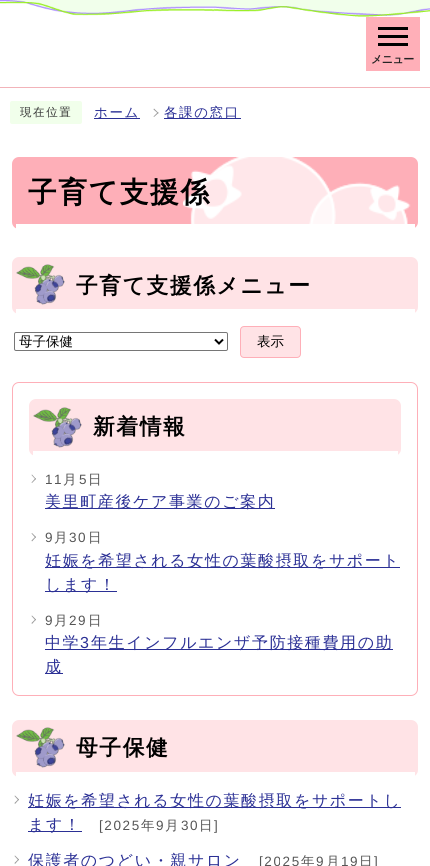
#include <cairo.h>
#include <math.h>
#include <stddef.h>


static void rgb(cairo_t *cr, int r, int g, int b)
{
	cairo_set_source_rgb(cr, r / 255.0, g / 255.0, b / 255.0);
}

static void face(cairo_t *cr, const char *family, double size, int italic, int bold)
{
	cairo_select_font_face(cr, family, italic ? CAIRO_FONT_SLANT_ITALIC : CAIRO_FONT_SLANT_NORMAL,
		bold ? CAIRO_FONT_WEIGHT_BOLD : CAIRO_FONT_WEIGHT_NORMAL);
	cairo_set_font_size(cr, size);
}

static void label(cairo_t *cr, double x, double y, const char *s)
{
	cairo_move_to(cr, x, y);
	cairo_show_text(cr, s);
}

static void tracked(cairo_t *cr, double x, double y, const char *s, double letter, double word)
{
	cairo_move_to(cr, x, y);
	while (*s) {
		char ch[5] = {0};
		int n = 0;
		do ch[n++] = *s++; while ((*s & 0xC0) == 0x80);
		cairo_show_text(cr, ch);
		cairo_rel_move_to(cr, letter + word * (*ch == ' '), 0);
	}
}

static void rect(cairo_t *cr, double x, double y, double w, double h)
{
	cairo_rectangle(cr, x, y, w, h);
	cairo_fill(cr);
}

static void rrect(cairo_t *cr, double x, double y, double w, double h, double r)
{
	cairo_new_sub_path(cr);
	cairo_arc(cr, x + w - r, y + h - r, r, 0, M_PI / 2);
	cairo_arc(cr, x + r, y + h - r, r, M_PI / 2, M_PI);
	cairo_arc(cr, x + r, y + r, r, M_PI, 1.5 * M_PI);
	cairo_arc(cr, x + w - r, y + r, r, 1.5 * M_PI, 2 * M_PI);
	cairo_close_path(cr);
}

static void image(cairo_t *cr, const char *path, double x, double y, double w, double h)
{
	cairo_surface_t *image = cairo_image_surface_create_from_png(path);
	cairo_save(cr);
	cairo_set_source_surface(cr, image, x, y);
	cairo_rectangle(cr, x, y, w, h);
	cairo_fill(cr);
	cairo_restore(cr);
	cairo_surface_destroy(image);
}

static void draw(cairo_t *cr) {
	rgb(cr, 255, 255, 255);
	cairo_paint(cr);
	image(cr, "image0.png", 0, 0, 430, 17);
	rgb(cr, 242, 179, 185);
	rect(cr, 0, 87, 430, 1);
	rgb(cr, 255, 175, 184);
	rect(cr, 366, 17, 54, 54);
	rgb(cr, 0, 0, 0);
	rect(cr, 378, 27, 30, 3);
	rect(cr, 378, 35, 30, 3);
	rect(cr, 378, 43, 30, 3);
	face(cr, "WenQuanYi Zen Hei", 11, 0, 1);
	rgb(cr, 34, 34, 34);
	tracked(cr, 371, 63, "メニュー", -0.5, 0);
	rgb(cr, 241, 255, 235);
	rrect(cr, 10, 101, 72, 23, 2);
	cairo_fill(cr);
	face(cr, "WenQuanYi Zen Hei Medium", 11.5, 0, 0);
	rgb(cr, 51, 51, 51);
	tracked(cr, 20, 116, "現在位置", 1.6, 0);
	rgb(cr, 43, 48, 149);
	rect(cr, 94, 118, 46, 1);
	face(cr, "WenQuanYi Zen Hei Medium", 13.5, 0, 0);
	tracked(cr, 94, 117, "ホーム", 1.6, 0);
	rgb(cr, 153, 153, 153);
	cairo_new_path(cr);
	cairo_move_to(cr, 153.5, 109.5);
	cairo_line_to(cr, 154, 108.5);
	cairo_line_to(cr, 158.5, 113);
	cairo_line_to(cr, 158, 113.5);
	cairo_close_path(cr);
	cairo_fill(cr);
	cairo_new_path(cr);
	cairo_move_to(cr, 153.5, 116.5);
	cairo_line_to(cr, 158, 112);
	cairo_line_to(cr, 158.5, 113);
	cairo_line_to(cr, 154, 117);
	cairo_close_path(cr);
	cairo_fill(cr);
	rgb(cr, 43, 48, 149);
	rect(cr, 164, 118, 77, 1);
	tracked(cr, 164, 117, "各課の窓口", 1.6, 0);
	rgb(cr, 254, 175, 184);
	rrect(cr, 12, 157, 406, 72, 7);
	cairo_fill(cr);
	image(cr, "image1.png", 183, 157, 228, 67);
	rgb(cr, 255, 255, 255);
	rect(cr, 16, 224, 399, 5);
	face(cr, "WenQuanYi Zen Hei", 28.75, 0, 1);
	rgb(cr, 0, 0, 0);
	tracked(cr, 28, 202, "子育て支援係", 1.6, 0);
	rgb(cr, 255, 227, 230);
	rrect(cr, 12, 257, 406, 57, 7);
	cairo_fill(cr);
	rgb(cr, 255, 255, 255);
	rect(cr, 16, 309, 399, 5);
	image(cr, "image2.png", 16, 264, 49, 41);
	face(cr, "WenQuanYi Zen Hei", 21.75, 0, 1);
	rgb(cr, 0, 0, 0);
	tracked(cr, 76, 293, "子育て支援係メニュー", 1.6, 0);
	rrect(cr, 14.5, 332.5, 213, 18, 1.5);
	rgb(cr, 118, 118, 118);
	cairo_set_line_width(cr, 1);
	cairo_stroke(cr);
	cairo_new_path(cr);
	cairo_move_to(cr, 215, 339.5);
	cairo_line_to(cr, 219, 343.5);
	cairo_line_to(cr, 223, 339.5);
	rgb(cr, 0, 0, 0);
	cairo_set_line_width(cr, 2);
	cairo_stroke(cr);
	face(cr, "WenQuanYi Zen Hei Medium", 13.5, 0, 0);
	label(cr, 19, 346, "母子保健");
	rgb(cr, 255, 227, 230);
	rrect(cr, 240.5, 326.5, 60, 31, 3.5);
	cairo_fill_preserve(cr);
	rgb(cr, 254, 175, 184);
	cairo_set_line_width(cr, 1);
	cairo_stroke(cr);
	rgb(cr, 0, 0, 0);
	label(cr, 257, 346, "表示");
	rrect(cr, 12.5, 382.5, 405, 313, 6.5);
	rgb(cr, 254, 175, 184);
	cairo_stroke(cr);
	rgb(cr, 255, 227, 230);
	rrect(cr, 29, 399, 372, 57, 7);
	cairo_fill(cr);
	rgb(cr, 255, 255, 255);
	rect(cr, 33, 451, 365, 5);
	image(cr, "image2.png", 33, 407, 49, 41);
	face(cr, "WenQuanYi Zen Hei", 21.75, 0, 1);
	rgb(cr, 0, 0, 0);
	tracked(cr, 93, 434, "新着情報", 1.6, 0);
	rgb(cr, 153, 153, 153);
	cairo_new_path(cr);
	cairo_move_to(cr, 31.5, 475);
	cairo_line_to(cr, 32, 474.5);
	cairo_line_to(cr, 36, 479);
	cairo_line_to(cr, 35.5, 479.5);
	cairo_close_path(cr);
	cairo_fill(cr);
	cairo_new_path(cr);
	cairo_move_to(cr, 31.5, 482.5);
	cairo_line_to(cr, 35.5, 478);
	cairo_line_to(cr, 36, 479);
	cairo_line_to(cr, 32, 483);
	cairo_close_path(cr);
	cairo_fill(cr);
	face(cr, "Liberation Sans", 13.5, 0, 0);
	rgb(cr, 85, 85, 85);
	tracked(cr, 45, 484, "11", 1.6, 0);
	face(cr, "WenQuanYi Zen Hei Medium", 13.5, 0, 0);
	tracked(cr, 63, 484, "月", 1.6, 0);
	face(cr, "Liberation Sans", 13.5, 0, 0);
	tracked(cr, 79, 484, "5", 1.6, 0);
	face(cr, "WenQuanYi Zen Hei Medium", 13.5, 0, 0);
	tracked(cr, 88, 484, "日", 1.6, 0);
	rgb(cr, 43, 48, 149);
	rect(cr, 45, 508, 230, 1);
	face(cr, "WenQuanYi Zen Hei Medium", 16, 0, 0);
	tracked(cr, 45, 507, "美里町産後ケア事業のご案内", 1.6, 0);
	rgb(cr, 153, 153, 153);
	cairo_new_path(cr);
	cairo_move_to(cr, 31.5, 533.5);
	cairo_line_to(cr, 32, 533);
	cairo_line_to(cr, 36, 537);
	cairo_line_to(cr, 35.5, 538);
	cairo_close_path(cr);
	cairo_fill(cr);
	cairo_new_path(cr);
	cairo_move_to(cr, 31.5, 540.5);
	cairo_line_to(cr, 35.5, 536.5);
	cairo_line_to(cr, 36, 537);
	cairo_line_to(cr, 32, 541.5);
	cairo_close_path(cr);
	cairo_fill(cr);
	face(cr, "Liberation Sans", 13.5, 0, 0);
	rgb(cr, 85, 85, 85);
	tracked(cr, 45, 542, "9", 1.6, 0);
	face(cr, "WenQuanYi Zen Hei Medium", 13.5, 0, 0);
	tracked(cr, 54, 542, "月", 1.6, 0);
	face(cr, "Liberation Sans", 13.5, 0, 0);
	tracked(cr, 69, 542, "30", 1.6, 0);
	face(cr, "WenQuanYi Zen Hei Medium", 13.5, 0, 0);
	tracked(cr, 88, 542, "日", 1.6, 0);
	rgb(cr, 43, 48, 149);
	rect(cr, 45, 567, 355, 1);
	face(cr, "WenQuanYi Zen Hei Medium", 16, 0, 0);
	tracked(cr, 45, 566, "妊娠を希望される女性の葉酸摂取をサポート", 1.6, 0);
	rect(cr, 45, 591, 72, 1);
	tracked(cr, 45, 590, "します！", 1.6, 0);
	rgb(cr, 153, 153, 153);
	cairo_new_path(cr);
	cairo_move_to(cr, 31.5, 616);
	cairo_line_to(cr, 32, 615.5);
	cairo_line_to(cr, 36, 619.5);
	cairo_line_to(cr, 35.5, 620.5);
	cairo_close_path(cr);
	cairo_fill(cr);
	cairo_new_path(cr);
	cairo_move_to(cr, 31.5, 623);
	cairo_line_to(cr, 35.5, 619);
	cairo_line_to(cr, 36, 619.5);
	cairo_line_to(cr, 32, 624);
	cairo_close_path(cr);
	cairo_fill(cr);
	face(cr, "Liberation Sans", 13.5, 0, 0);
	rgb(cr, 85, 85, 85);
	tracked(cr, 45, 625, "9", 1.6, 0);
	face(cr, "WenQuanYi Zen Hei Medium", 13.5, 0, 0);
	tracked(cr, 54, 625, "月", 1.6, 0);
	face(cr, "Liberation Sans", 13.5, 0, 0);
	tracked(cr, 69, 625, "29", 1.6, 0);
	face(cr, "WenQuanYi Zen Hei Medium", 13.5, 0, 0);
	tracked(cr, 88, 625, "日", 1.6, 0);
	rgb(cr, 43, 48, 149);
	rect(cr, 45, 649, 348, 1);
	face(cr, "WenQuanYi Zen Hei Medium", 16, 0, 0);
	tracked(cr, 45, 648, "中学", 1.6, 0);
	face(cr, "Liberation Sans", 16, 0, 0);
	tracked(cr, 80, 648, "3", 1.6, 0);
	face(cr, "WenQuanYi Zen Hei Medium", 16, 0, 0);
	tracked(cr, 91, 648, "年生インフルエンザ予防接種費用の助", 1.6, 0);
	rect(cr, 45, 673, 18, 1);
	tracked(cr, 45, 672, "成", 1.6, 0);
	rgb(cr, 255, 227, 230);
	rrect(cr, 12, 720, 406, 57, 7);
	cairo_fill(cr);
	rgb(cr, 255, 255, 255);
	rect(cr, 16, 772, 399, 5);
	image(cr, "image2.png", 16, 727, 49, 41);
	face(cr, "WenQuanYi Zen Hei", 21.75, 0, 1);
	rgb(cr, 0, 0, 0);
	tracked(cr, 76, 755, "母子保健", 1.6, 0);
	rgb(cr, 153, 153, 153);
	cairo_new_path(cr);
	cairo_move_to(cr, 14.5, 796);
	cairo_line_to(cr, 15, 795.5);
	cairo_line_to(cr, 19, 799.5);
	cairo_line_to(cr, 18.5, 800.5);
	cairo_close_path(cr);
	cairo_fill(cr);
	cairo_new_path(cr);
	cairo_move_to(cr, 14.5, 803);
	cairo_line_to(cr, 18.5, 799);
	cairo_line_to(cr, 19, 799.5);
	cairo_line_to(cr, 15, 804);
	cairo_close_path(cr);
	cairo_fill(cr);
	rgb(cr, 43, 48, 149);
	rect(cr, 28, 807, 373, 1);
	face(cr, "WenQuanYi Zen Hei Medium", 16, 0, 0);
	tracked(cr, 28, 806, "妊娠を希望される女性の葉酸摂取をサポートし", 1.6, 0);
	rect(cr, 28, 831, 54, 1);
	tracked(cr, 28, 830, "ます！", 1.6, 0);
	face(cr, "Liberation Sans", 13.5, 0, 0);
	rgb(cr, 85, 85, 85);
	tracked(cr, 99, 830, "[2025", 1.6, 0);
	face(cr, "WenQuanYi Zen Hei Medium", 13.5, 0, 0);
	tracked(cr, 141, 830, "年", 1.6, 0);
	face(cr, "Liberation Sans", 13.5, 0, 0);
	tracked(cr, 156, 830, "9", 1.6, 0);
	face(cr, "WenQuanYi Zen Hei Medium", 13.5, 0, 0);
	tracked(cr, 165, 830, "月", 1.6, 0);
	face(cr, "Liberation Sans", 13.5, 0, 0);
	tracked(cr, 181, 830, "30", 1.6, 0);
	face(cr, "WenQuanYi Zen Hei Medium", 13.5, 0, 0);
	tracked(cr, 199, 830, "日", 1.6, 0);
	face(cr, "Liberation Sans", 13.5, 0, 0);
	tracked(cr, 214, 830, "]", 1.6, 0);
	rgb(cr, 153, 153, 153);
	cairo_new_path(cr);
	cairo_move_to(cr, 14.5, 856);
	cairo_line_to(cr, 15, 855.5);
	cairo_line_to(cr, 19, 859.5);
	cairo_line_to(cr, 18.5, 860.5);
	cairo_close_path(cr);
	cairo_fill(cr);
	cairo_new_path(cr);
	cairo_move_to(cr, 14.5, 863);
	cairo_line_to(cr, 18.5, 859);
	cairo_line_to(cr, 19, 859.5);
	cairo_line_to(cr, 15, 864);
	cairo_close_path(cr);
	cairo_fill(cr);
	face(cr, "WenQuanYi Zen Hei Medium", 16, 0, 0);
	rgb(cr, 43, 48, 149);
	tracked(cr, 28, 866, "保護者のつどい・親サロン", 1.6, 0);
	face(cr, "Liberation Sans", 13.5, 0, 0);
	rgb(cr, 85, 85, 85);
	tracked(cr, 259, 866, "[2025", 1.6, 0);
	face(cr, "WenQuanYi Zen Hei Medium", 13.5, 0, 0);
	tracked(cr, 301, 866, "年", 1.6, 0);
	face(cr, "Liberation Sans", 13.5, 0, 0);
	tracked(cr, 316, 866, "9", 1.6, 0);
	face(cr, "WenQuanYi Zen Hei Medium", 13.5, 0, 0);
	tracked(cr, 326, 866, "月", 1.6, 0);
	face(cr, "Liberation Sans", 13.5, 0, 0);
	tracked(cr, 341, 866, "19", 1.6, 0);
	face(cr, "WenQuanYi Zen Hei Medium", 13.5, 0, 0);
	tracked(cr, 359, 866, "日", 1.6, 0);
	face(cr, "Liberation Sans", 13.5, 0, 0);
	tracked(cr, 374, 866, "]", 1.6, 0);
}

int main(void) {
	cairo_surface_t *surface = cairo_image_surface_create(CAIRO_FORMAT_RGB24, 430, 866);
	cairo_t *cr = cairo_create(surface);
	cairo_font_options_t *options = cairo_font_options_create();
	cairo_font_options_set_hint_metrics(options, CAIRO_HINT_METRICS_OFF);
	cairo_font_options_set_hint_style(options, CAIRO_HINT_STYLE_NONE);
	cairo_set_font_options(cr, options);
	cairo_set_miter_limit(cr, 4);
	draw(cr);
	cairo_surface_write_to_png(surface, "render.png");
	cairo_font_options_destroy(options);
	cairo_destroy(cr);
	cairo_surface_destroy(surface);
	return 0;
}
